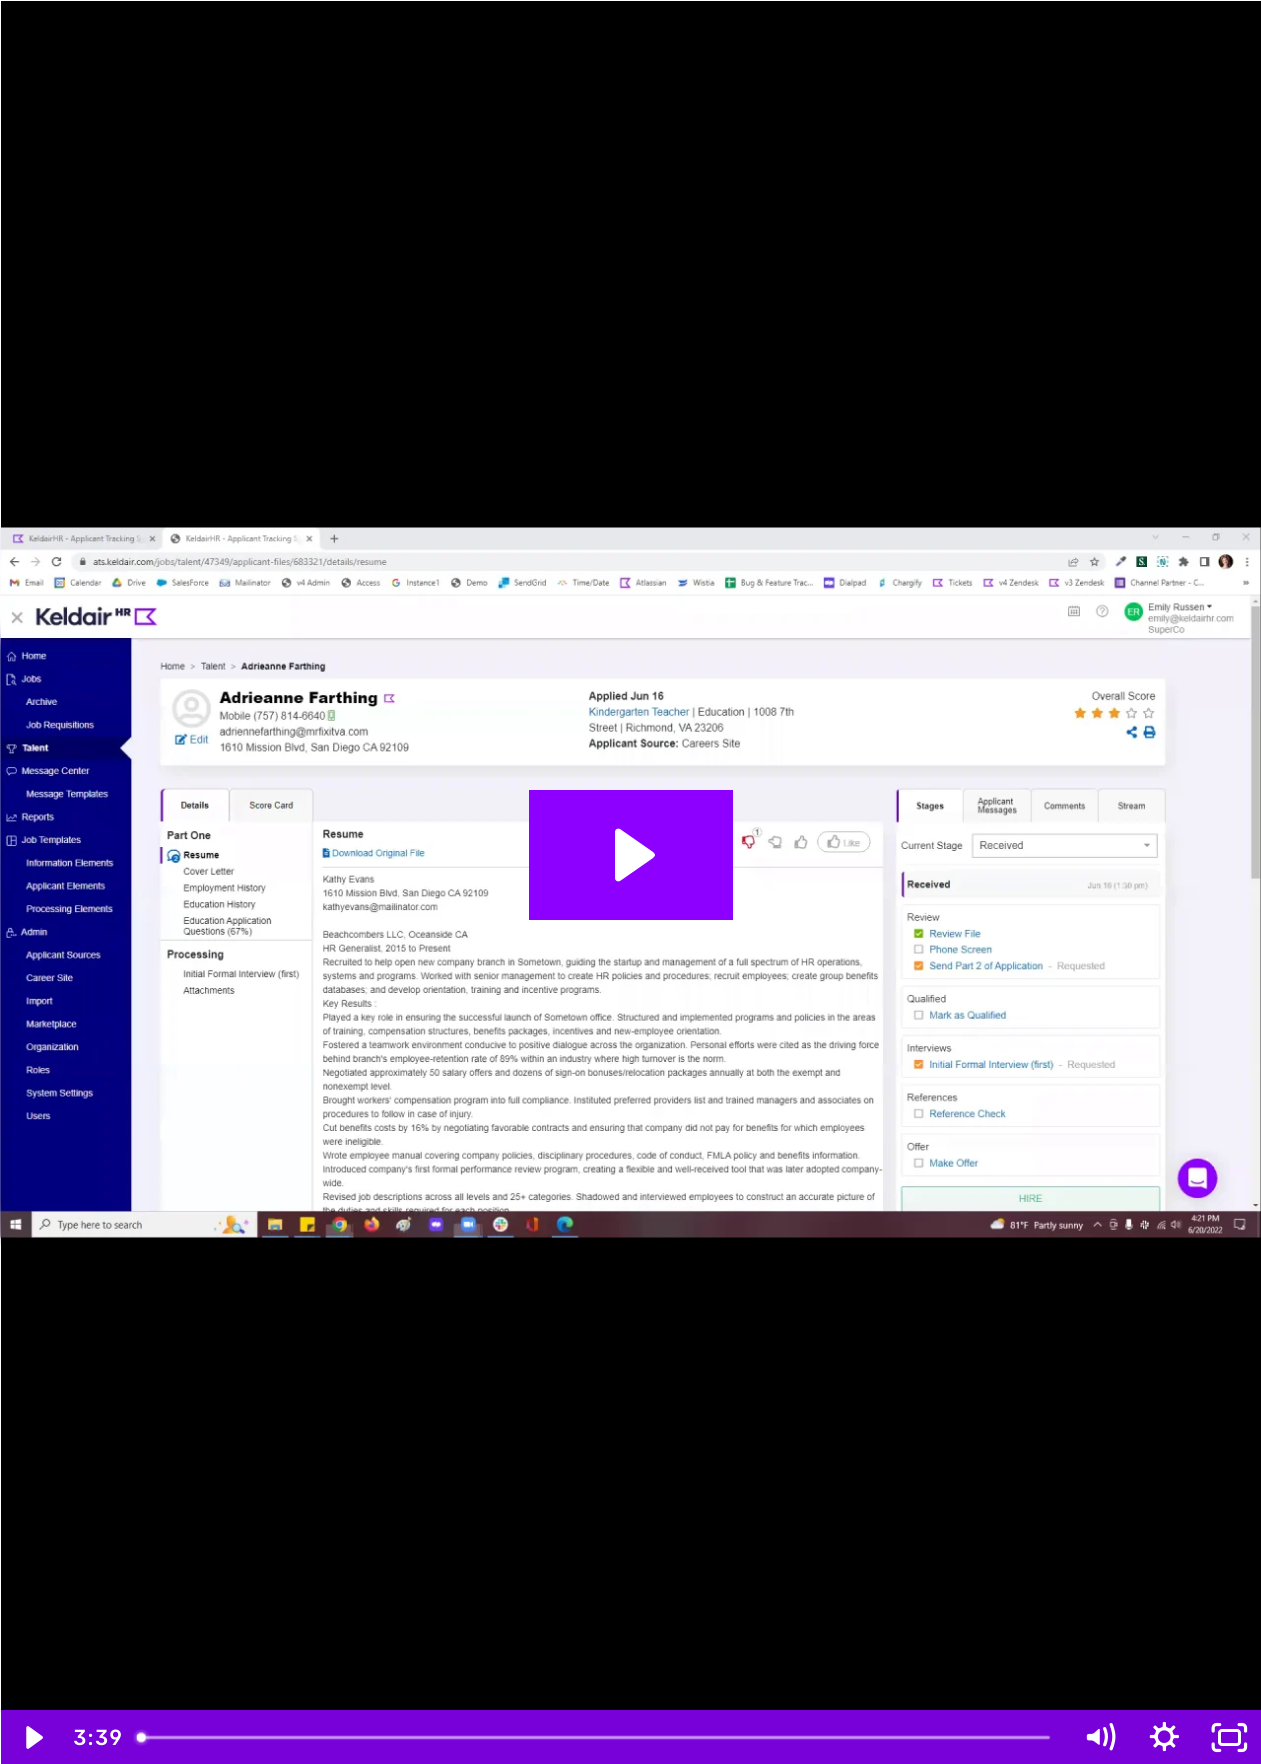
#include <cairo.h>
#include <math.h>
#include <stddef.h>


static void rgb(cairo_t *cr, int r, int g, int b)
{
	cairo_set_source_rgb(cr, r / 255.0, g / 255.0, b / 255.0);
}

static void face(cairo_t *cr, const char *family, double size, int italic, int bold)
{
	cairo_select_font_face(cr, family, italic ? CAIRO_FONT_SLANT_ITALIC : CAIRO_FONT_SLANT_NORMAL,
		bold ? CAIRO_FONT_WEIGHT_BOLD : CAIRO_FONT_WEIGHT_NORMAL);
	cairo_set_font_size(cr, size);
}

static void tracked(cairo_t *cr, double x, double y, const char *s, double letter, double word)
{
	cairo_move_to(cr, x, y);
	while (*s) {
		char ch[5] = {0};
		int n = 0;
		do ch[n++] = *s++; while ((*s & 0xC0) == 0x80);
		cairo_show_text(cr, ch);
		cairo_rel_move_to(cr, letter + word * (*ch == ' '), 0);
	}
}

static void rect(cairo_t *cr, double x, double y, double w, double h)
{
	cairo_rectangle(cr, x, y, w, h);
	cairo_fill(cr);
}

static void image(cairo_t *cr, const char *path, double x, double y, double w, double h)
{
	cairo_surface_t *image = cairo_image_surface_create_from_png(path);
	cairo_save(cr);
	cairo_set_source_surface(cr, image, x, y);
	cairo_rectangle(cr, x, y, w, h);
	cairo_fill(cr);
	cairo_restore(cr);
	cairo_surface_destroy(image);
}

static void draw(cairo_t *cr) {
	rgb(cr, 255, 255, 255);
	cairo_paint(cr);
	image(cr, "image0.png", 0, 520, 1, 727);
	rgb(cr, 0, 0, 0);
	rect(cr, 1, 1, 1260, 1709);
	image(cr, "image2.png", 0, 521, 1, 723);
	image(cr, "image1.png", 0, 527, 1261, 711);
	rgb(cr, 141, 0, 255);
	rect(cr, 529, 790, 204, 130);
	rgb(cr, 255, 255, 255);
	cairo_set_fill_rule(cr, CAIRO_FILL_RULE_EVEN_ODD);
	cairo_new_path(cr);
	cairo_move_to(cr, 620, 829);
	cairo_curve_to(cr, 618, 828, 615, 829, 615, 832);
	cairo_line_to(cr, 615, 878);
	cairo_curve_to(cr, 615, 881, 618, 882, 620, 881);
	cairo_line_to(cr, 653, 858);
	cairo_curve_to(cr, 654, 857, 655, 856, 655, 855);
	cairo_curve_to(cr, 655, 854, 654, 853, 653, 852);
	cairo_close_path(cr);
	cairo_fill(cr);
	rgb(cr, 120, 0, 217);
	rect(cr, 1, 1710, 1260, 54);
	image(cr, "image3.png", 26, 1726, 17, 23);
	face(cr, "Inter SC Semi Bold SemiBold", 21, 0, 0);
	rgb(cr, 255, 255, 255);
	tracked(cr, 73, 1745, "3:39", 1, 0);
	image(cr, "image4.png", 133, 1729, 918, 17);
	image(cr, "image5.png", 1086, 1723, 30, 28);
	image(cr, "image6.png", 1149, 1721, 30, 31);
	image(cr, "image7.png", 1211, 1722, 37, 31);
}

int main(void) {
	cairo_surface_t *surface = cairo_image_surface_create(CAIRO_FORMAT_RGB24, 1261, 1764);
	cairo_t *cr = cairo_create(surface);
	cairo_font_options_t *options = cairo_font_options_create();
	cairo_font_options_set_hint_metrics(options, CAIRO_HINT_METRICS_OFF);
	cairo_font_options_set_hint_style(options, CAIRO_HINT_STYLE_NONE);
	cairo_set_font_options(cr, options);
	cairo_set_miter_limit(cr, 4);
	draw(cr);
	cairo_surface_write_to_png(surface, "render.png");
	cairo_font_options_destroy(options);
	cairo_destroy(cr);
	cairo_surface_destroy(surface);
	return 0;
}
